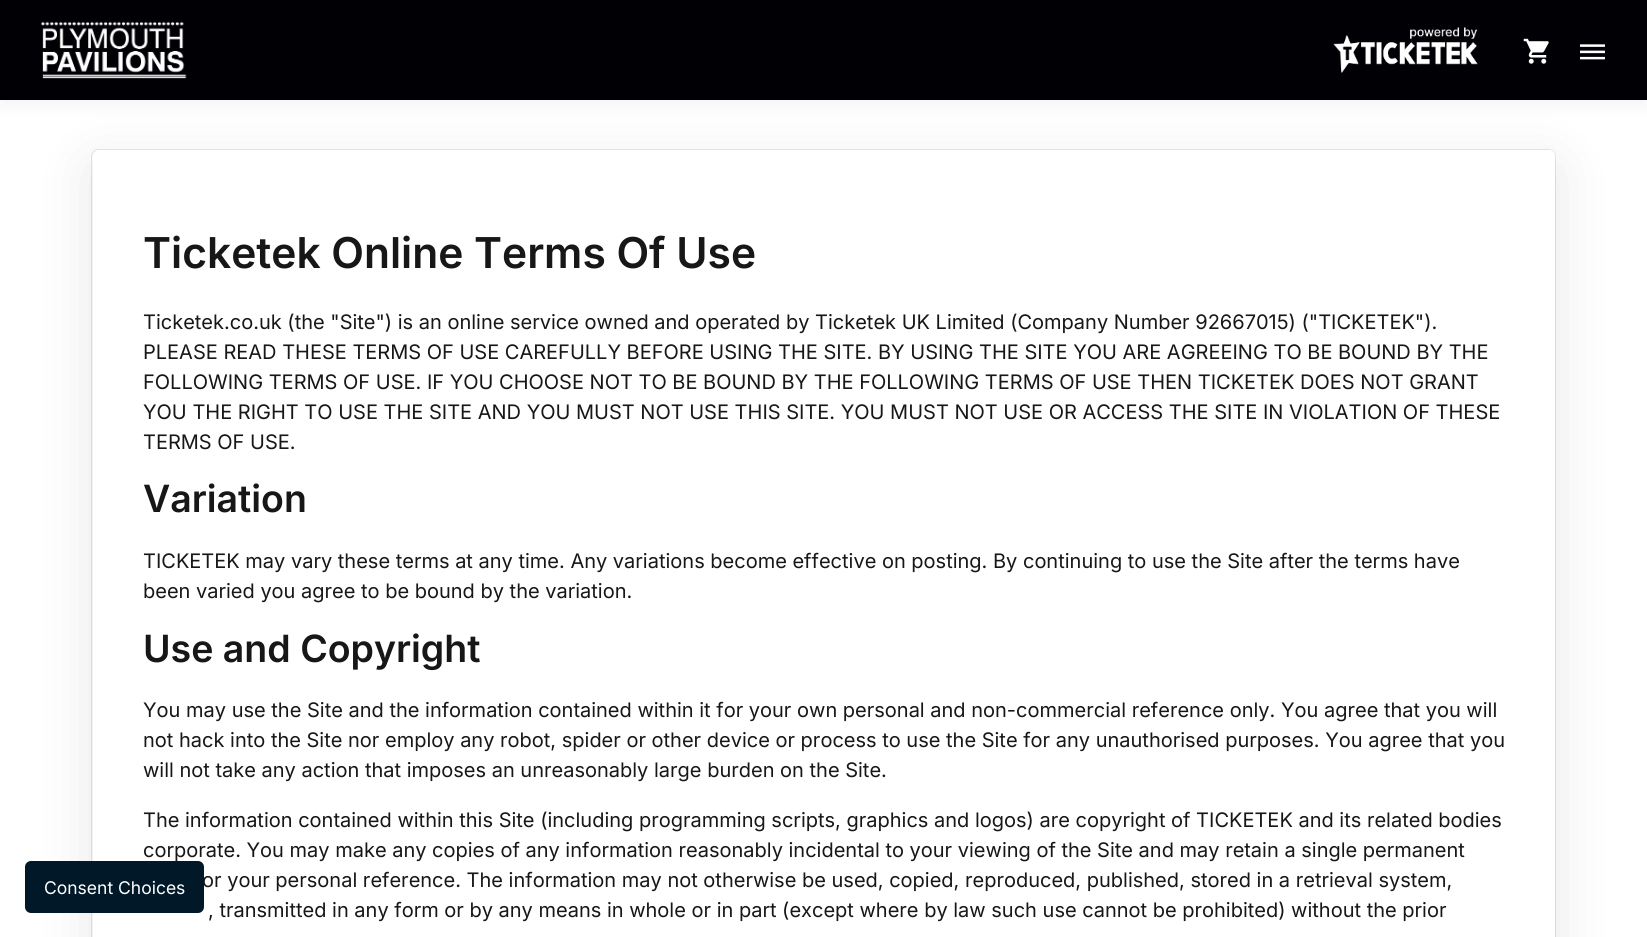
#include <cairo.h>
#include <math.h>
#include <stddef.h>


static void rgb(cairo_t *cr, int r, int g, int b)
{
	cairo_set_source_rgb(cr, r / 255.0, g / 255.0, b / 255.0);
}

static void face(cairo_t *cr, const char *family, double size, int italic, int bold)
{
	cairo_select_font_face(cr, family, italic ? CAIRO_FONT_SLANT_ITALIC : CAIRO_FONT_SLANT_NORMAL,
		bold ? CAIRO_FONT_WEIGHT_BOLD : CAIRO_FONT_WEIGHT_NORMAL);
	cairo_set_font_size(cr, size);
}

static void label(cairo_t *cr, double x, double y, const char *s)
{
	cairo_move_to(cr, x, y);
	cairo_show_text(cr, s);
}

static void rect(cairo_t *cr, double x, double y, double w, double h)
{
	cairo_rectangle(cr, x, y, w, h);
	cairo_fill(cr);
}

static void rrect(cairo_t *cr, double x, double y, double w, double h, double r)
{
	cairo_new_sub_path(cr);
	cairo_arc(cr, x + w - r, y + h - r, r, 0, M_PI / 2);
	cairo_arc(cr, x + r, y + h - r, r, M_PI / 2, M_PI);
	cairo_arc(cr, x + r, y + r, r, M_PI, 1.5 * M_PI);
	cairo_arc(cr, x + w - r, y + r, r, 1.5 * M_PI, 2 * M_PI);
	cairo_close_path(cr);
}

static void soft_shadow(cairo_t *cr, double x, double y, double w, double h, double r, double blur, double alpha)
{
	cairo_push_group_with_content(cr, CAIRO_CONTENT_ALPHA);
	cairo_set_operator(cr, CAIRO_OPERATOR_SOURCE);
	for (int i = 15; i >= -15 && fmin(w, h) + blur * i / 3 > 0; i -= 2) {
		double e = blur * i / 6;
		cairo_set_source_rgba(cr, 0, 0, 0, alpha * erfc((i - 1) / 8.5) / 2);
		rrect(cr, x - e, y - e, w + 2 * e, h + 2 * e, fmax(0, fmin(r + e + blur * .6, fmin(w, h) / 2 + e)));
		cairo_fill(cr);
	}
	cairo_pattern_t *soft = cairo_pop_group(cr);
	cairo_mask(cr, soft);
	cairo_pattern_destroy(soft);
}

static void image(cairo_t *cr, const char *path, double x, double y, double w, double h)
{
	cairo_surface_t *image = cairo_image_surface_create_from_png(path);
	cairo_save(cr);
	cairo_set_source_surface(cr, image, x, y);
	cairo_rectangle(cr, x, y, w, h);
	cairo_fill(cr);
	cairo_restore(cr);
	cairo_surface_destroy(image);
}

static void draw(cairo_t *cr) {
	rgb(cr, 255, 255, 255);
	cairo_paint(cr);
	rrect(cr, 91.5, 149.5, 1464, 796, 7.5);
	rgb(cr, 230, 230, 230);
	cairo_set_line_width(cr, 1);
	cairo_stroke(cr);
	rgb(cr, 0, 0, 0);
	soft_shadow(cr, 93, 165, 1462, 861, 6, 27.5, 0.1);
	rgb(cr, 255, 255, 255);
	rrect(cr, 93, 150, 1462, 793, 6);
	cairo_fill(cr);
	face(cr, "Inter", 20, 0, 0);
	rgb(cr, 23, 23, 23);
	label(cr, 143, 857, "corporate. You may make any copies of any information reasonably incidental to your viewing of the Site and may retain a single permanent");
	label(cr, 202, 887, "or your personal reference. The information may not otherwise be used, copied, reproduced, published, stored in a retrieval system,");
	rgb(cr, 0, 24, 40);
	rrect(cr, 25, 861, 179, 52, 6);
	cairo_fill(cr);
	face(cr, "Inter", 17.5, 0, 0);
	rgb(cr, 255, 255, 255);
	label(cr, 44, 894, "Consent Choices");
	rgb(cr, 0, 0, 0);
	soft_shadow(cr, 0, 8, 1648, 100, 0, 7.5, 0.04);
	rgb(cr, 0, 0, 5);
	rect(cr, 0, 0, 1647, 100);
	image(cr, "image0.png", 41, 21, 146, 58);
	image(cr, "image1.png", 1333, 27, 145, 46);
	image(cr, "image2.png", 1523, 38, 26, 26);
	image(cr, "image3.png", 1580, 44, 25, 16);
	face(cr, "Inter SemiBold", 42.5, 0, 0);
	rgb(cr, 23, 23, 23);
	label(cr, 143, 268, "Ticketek Online Terms Of Use");
	face(cr, "Inter", 20, 0, 0);
	label(cr, 143, 329, "Ticketek.co.uk (the \"Site\") is an online service owned and operated by Ticketek UK Limited (Company Number 92667015) (\"TICKETEK\").");
	label(cr, 143, 359, "PLEASE READ THESE TERMS OF USE CAREFULLY BEFORE USING THE SITE. BY USING THE SITE YOU ARE AGREEING TO BE BOUND BY THE");
	label(cr, 143, 389, "FOLLOWING TERMS OF USE. IF YOU CHOOSE NOT TO BE BOUND BY THE FOLLOWING TERMS OF USE THEN TICKETEK DOES NOT GRANT");
	label(cr, 143, 419, "YOU THE RIGHT TO USE THE SITE AND YOU MUST NOT USE THIS SITE. YOU MUST NOT USE OR ACCESS THE SITE IN VIOLATION OF THESE");
	label(cr, 143, 449, "TERMS OF USE.");
	face(cr, "Inter SemiBold", 37.5, 0, 0);
	label(cr, 143, 512, "Variation");
	face(cr, "Inter", 20, 0, 0);
	label(cr, 143, 568, "TICKETEK may vary these terms at any time. Any variations become effective on posting. By continuing to use the Site after the terms have");
	label(cr, 143, 598, "been varied you agree to be bound by the variation.");
	face(cr, "Inter SemiBold", 37.5, 0, 0);
	label(cr, 143, 662, "Use and Copyright");
	face(cr, "Inter", 20, 0, 0);
	label(cr, 143, 717, "You may use the Site and the information contained within it for your own personal and non-commercial reference only. You agree that you will");
	label(cr, 143, 747, "not hack into the Site nor employ any robot, spider or other device or process to use the Site for any unauthorised purposes. You agree that you");
	label(cr, 143, 777, "will not take any action that imposes an unreasonably large burden on the Site.");
	label(cr, 143, 827, "The information contained within this Site (including programming scripts, graphics and logos) are copyright of TICKETEK and its related bodies");
	label(cr, 208, 917, ", transmitted in any form or by any means in whole or in part (except where by law such use cannot be prohibited) without the prior");
}

int main(void) {
	cairo_surface_t *surface = cairo_image_surface_create(CAIRO_FORMAT_RGB24, 1647, 937);
	cairo_t *cr = cairo_create(surface);
	cairo_font_options_t *options = cairo_font_options_create();
	cairo_font_options_set_hint_metrics(options, CAIRO_HINT_METRICS_OFF);
	cairo_font_options_set_hint_style(options, CAIRO_HINT_STYLE_NONE);
	cairo_set_font_options(cr, options);
	cairo_set_miter_limit(cr, 4);
	draw(cr);
	cairo_surface_write_to_png(surface, "render.png");
	cairo_font_options_destroy(options);
	cairo_destroy(cr);
	cairo_surface_destroy(surface);
	return 0;
}
